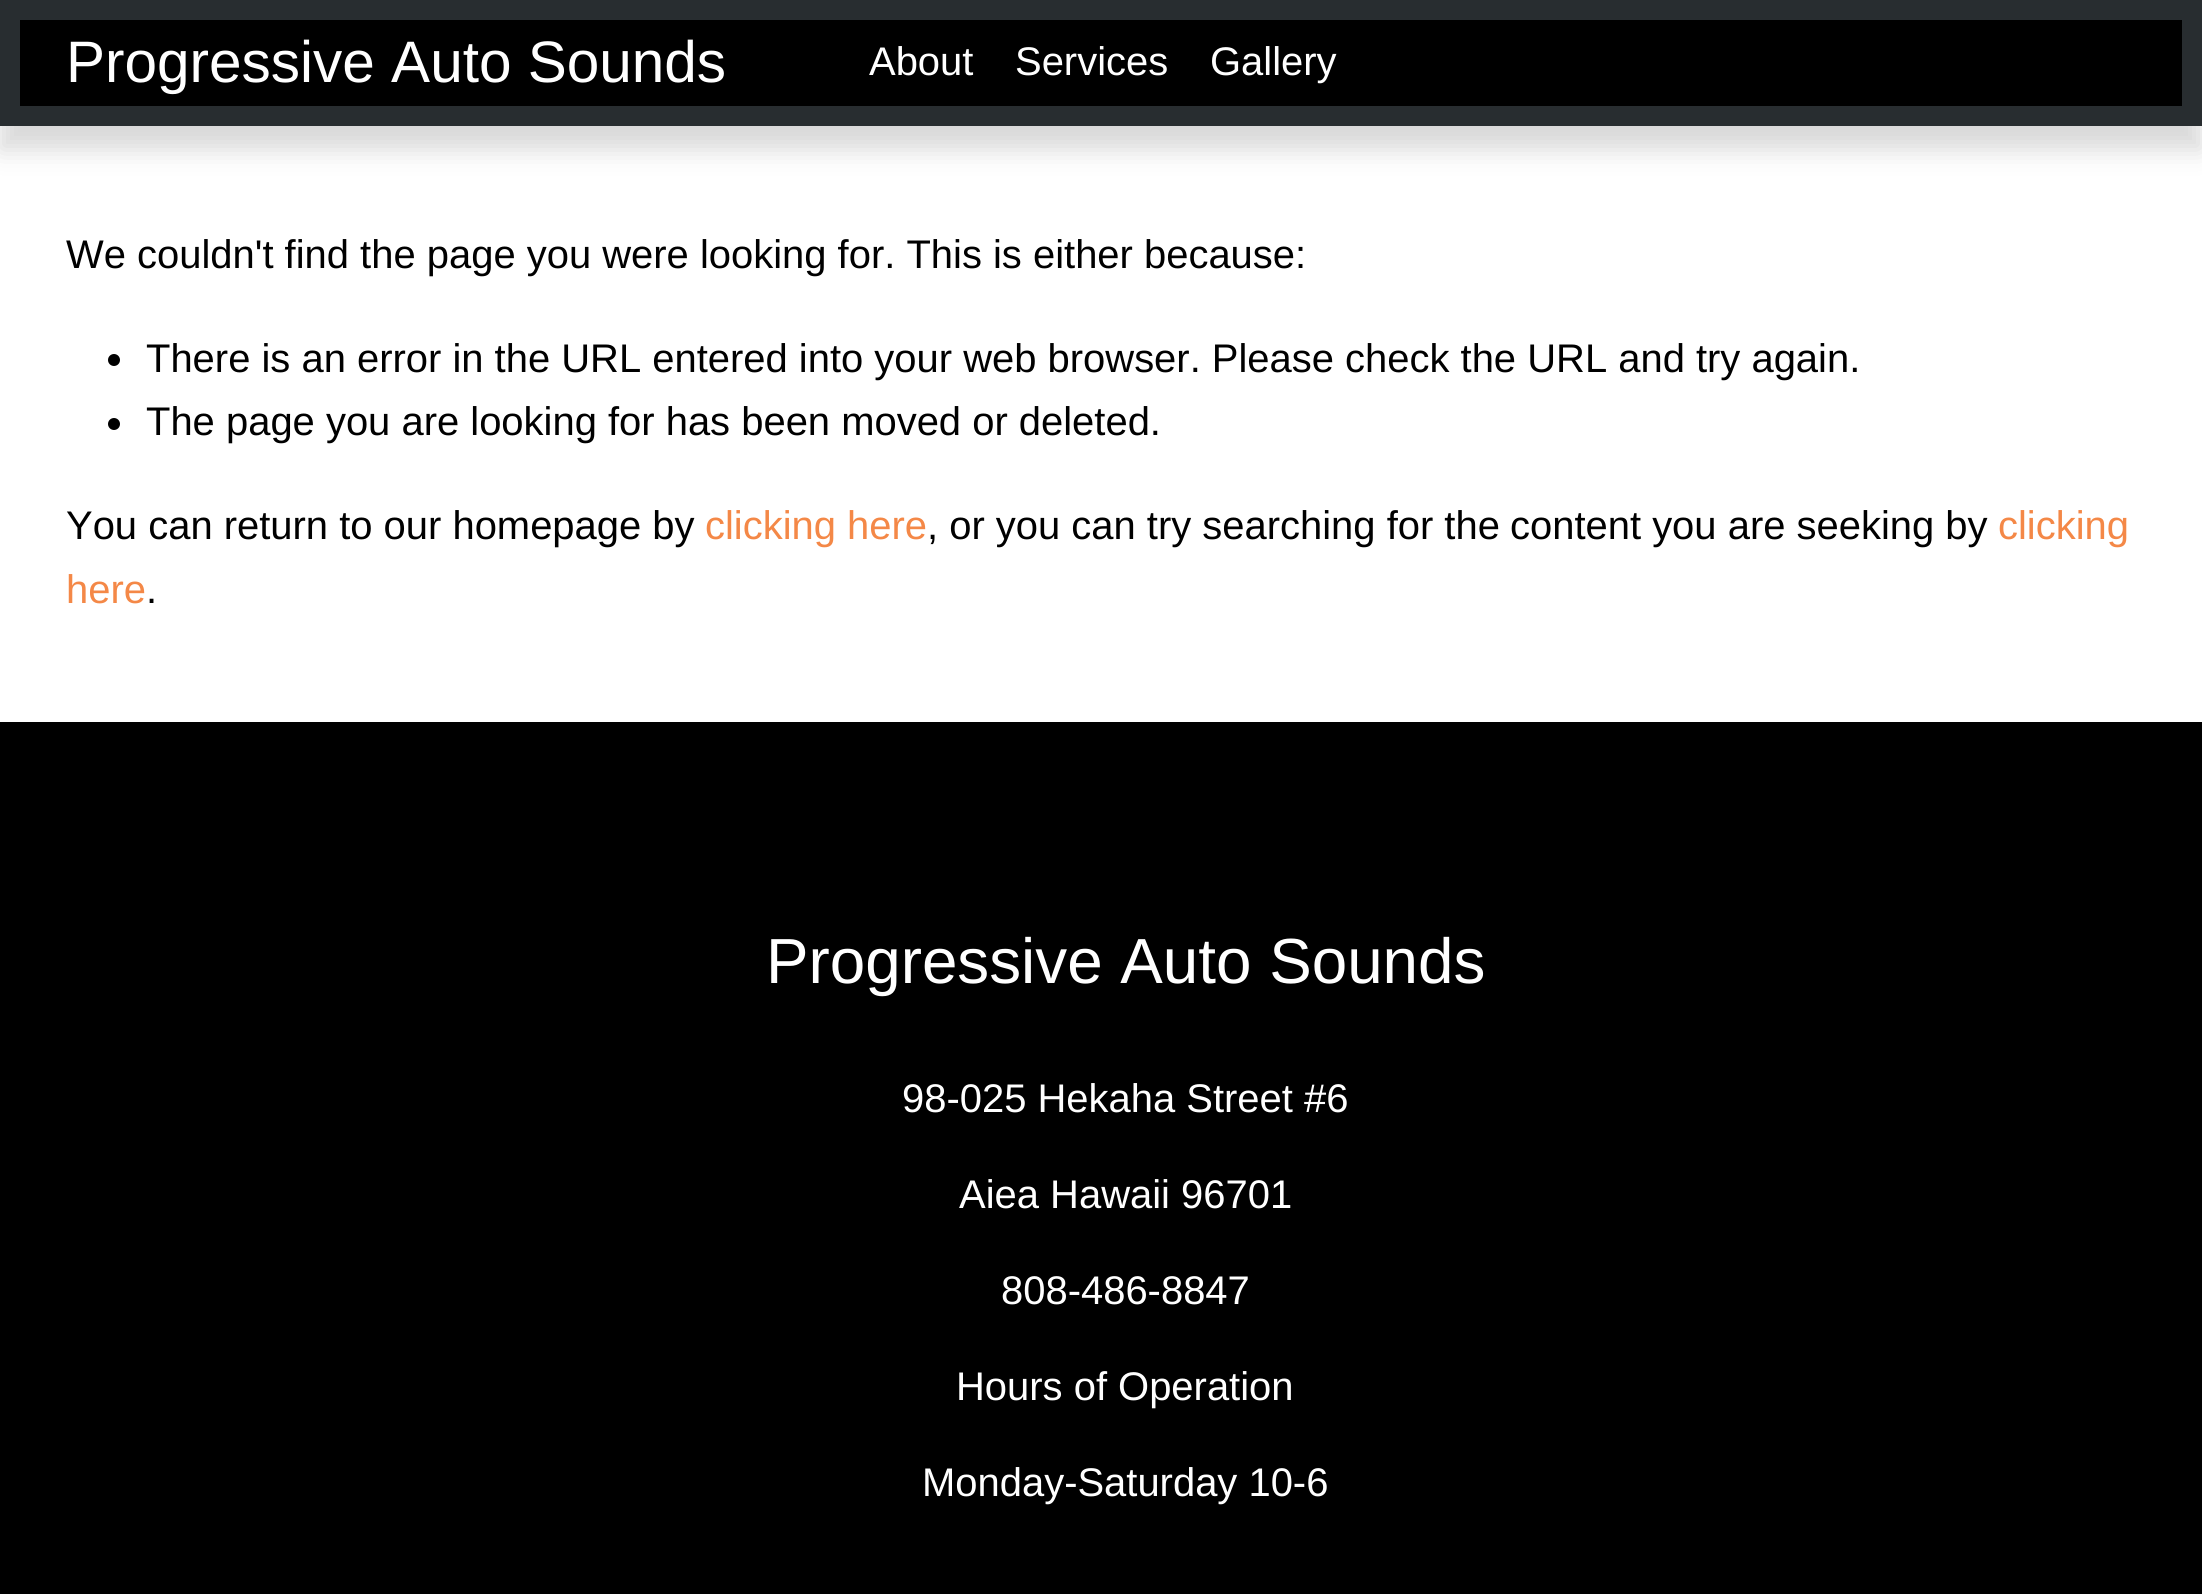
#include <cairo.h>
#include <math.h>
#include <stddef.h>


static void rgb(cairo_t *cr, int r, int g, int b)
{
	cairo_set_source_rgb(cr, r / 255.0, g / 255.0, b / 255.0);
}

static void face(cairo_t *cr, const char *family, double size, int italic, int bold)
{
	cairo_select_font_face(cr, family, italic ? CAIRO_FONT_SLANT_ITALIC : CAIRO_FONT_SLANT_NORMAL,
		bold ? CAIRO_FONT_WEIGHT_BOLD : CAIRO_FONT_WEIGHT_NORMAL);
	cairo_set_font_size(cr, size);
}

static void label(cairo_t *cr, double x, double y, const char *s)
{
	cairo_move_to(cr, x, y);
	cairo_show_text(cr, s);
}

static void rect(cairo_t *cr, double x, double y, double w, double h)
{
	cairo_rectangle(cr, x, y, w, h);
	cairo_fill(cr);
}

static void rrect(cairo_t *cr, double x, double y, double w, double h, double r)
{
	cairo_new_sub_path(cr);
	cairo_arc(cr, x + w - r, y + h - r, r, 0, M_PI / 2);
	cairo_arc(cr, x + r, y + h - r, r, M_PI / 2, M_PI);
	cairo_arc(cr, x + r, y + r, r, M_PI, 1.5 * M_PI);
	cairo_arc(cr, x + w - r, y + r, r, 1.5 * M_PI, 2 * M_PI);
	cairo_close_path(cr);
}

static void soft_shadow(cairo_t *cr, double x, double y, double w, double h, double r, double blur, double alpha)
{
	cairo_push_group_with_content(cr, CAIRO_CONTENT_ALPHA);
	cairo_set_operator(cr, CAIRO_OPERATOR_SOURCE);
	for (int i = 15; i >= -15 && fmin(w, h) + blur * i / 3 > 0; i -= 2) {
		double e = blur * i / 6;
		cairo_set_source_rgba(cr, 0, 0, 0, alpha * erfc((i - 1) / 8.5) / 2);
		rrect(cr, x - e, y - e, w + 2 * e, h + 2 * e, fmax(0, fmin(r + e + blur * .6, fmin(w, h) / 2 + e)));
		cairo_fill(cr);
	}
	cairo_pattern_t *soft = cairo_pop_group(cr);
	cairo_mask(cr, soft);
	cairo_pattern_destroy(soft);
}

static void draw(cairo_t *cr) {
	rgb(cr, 255, 255, 255);
	cairo_paint(cr);
	rgb(cr, 217, 217, 217);
	soft_shadow(cr, 0, 24, 2202, 126, 0, 12, 1);
	rgb(cr, 0, 0, 0);
	cairo_rectangle(cr, 10, 10, 2182, 106);
	cairo_fill_preserve(cr);
	rgb(cr, 40, 45, 48);
	cairo_set_line_width(cr, 20);
	cairo_stroke(cr);
	face(cr, "Liberation Sans", 58.5, 0, 0);
	rgb(cr, 255, 255, 255);
	label(cr, 66, 82, "Progressive Auto Sounds");
	face(cr, "Liberation Sans", 39.95, 0, 0);
	label(cr, 869, 75, "About");
	label(cr, 1015, 75, "Services");
	label(cr, 1210, 75, "Gallery");
	rgb(cr, 0, 0, 0);
	label(cr, 66, 268, "We couldn't find the page you were looking for. This is either because:");
	cairo_new_path(cr);
	cairo_arc(cr, 114, 360, 6, 0, 2 * M_PI);
	cairo_fill(cr);
	label(cr, 146, 372, "There is an error in the URL entered into your web browser. Please check the URL and try again.");
	cairo_new_path(cr);
	cairo_arc(cr, 114, 424, 6, 0, 2 * M_PI);
	cairo_fill(cr);
	label(cr, 146, 435, "The page you are looking for has been moved or deleted.");
	label(cr, 66, 539, "You can return to our homepage by");
	rgb(cr, 244, 136, 71);
	label(cr, 705, 539, "clicking here");
	rgb(cr, 0, 0, 0);
	label(cr, 927, 539, ", or you can try searching for the");
	label(cr, 1510, 539, "content you are seeking by");
	rgb(cr, 244, 136, 71);
	label(cr, 1998, 539, "clicking");
	label(cr, 66, 603, "here");
	rgb(cr, 0, 0, 0);
	label(cr, 146, 603, ".");
	rect(cr, 0, 722, 2202, 872);
	face(cr, "Liberation Sans", 63.75, 0, 0);
	rgb(cr, 255, 255, 255);
	label(cr, 766, 983, "Progressive Auto Sounds");
	face(cr, "Liberation Sans", 39.95, 0, 0);
	label(cr, 902, 1112, "98-025 Hekaha Street #6");
	label(cr, 959, 1208, "Aiea Hawaii 96701");
	label(cr, 1001, 1304, "808-486-8847");
	label(cr, 956, 1400, "Hours of Operation");
	label(cr, 922, 1496, "Monday-Saturday 10-6");
}

int main(void) {
	cairo_surface_t *surface = cairo_image_surface_create(CAIRO_FORMAT_RGB24, 2202, 1594);
	cairo_t *cr = cairo_create(surface);
	cairo_font_options_t *options = cairo_font_options_create();
	cairo_font_options_set_hint_metrics(options, CAIRO_HINT_METRICS_OFF);
	cairo_font_options_set_hint_style(options, CAIRO_HINT_STYLE_NONE);
	cairo_set_font_options(cr, options);
	cairo_set_miter_limit(cr, 4);
	draw(cr);
	cairo_surface_write_to_png(surface, "render.png");
	cairo_font_options_destroy(options);
	cairo_destroy(cr);
	cairo_surface_destroy(surface);
	return 0;
}
